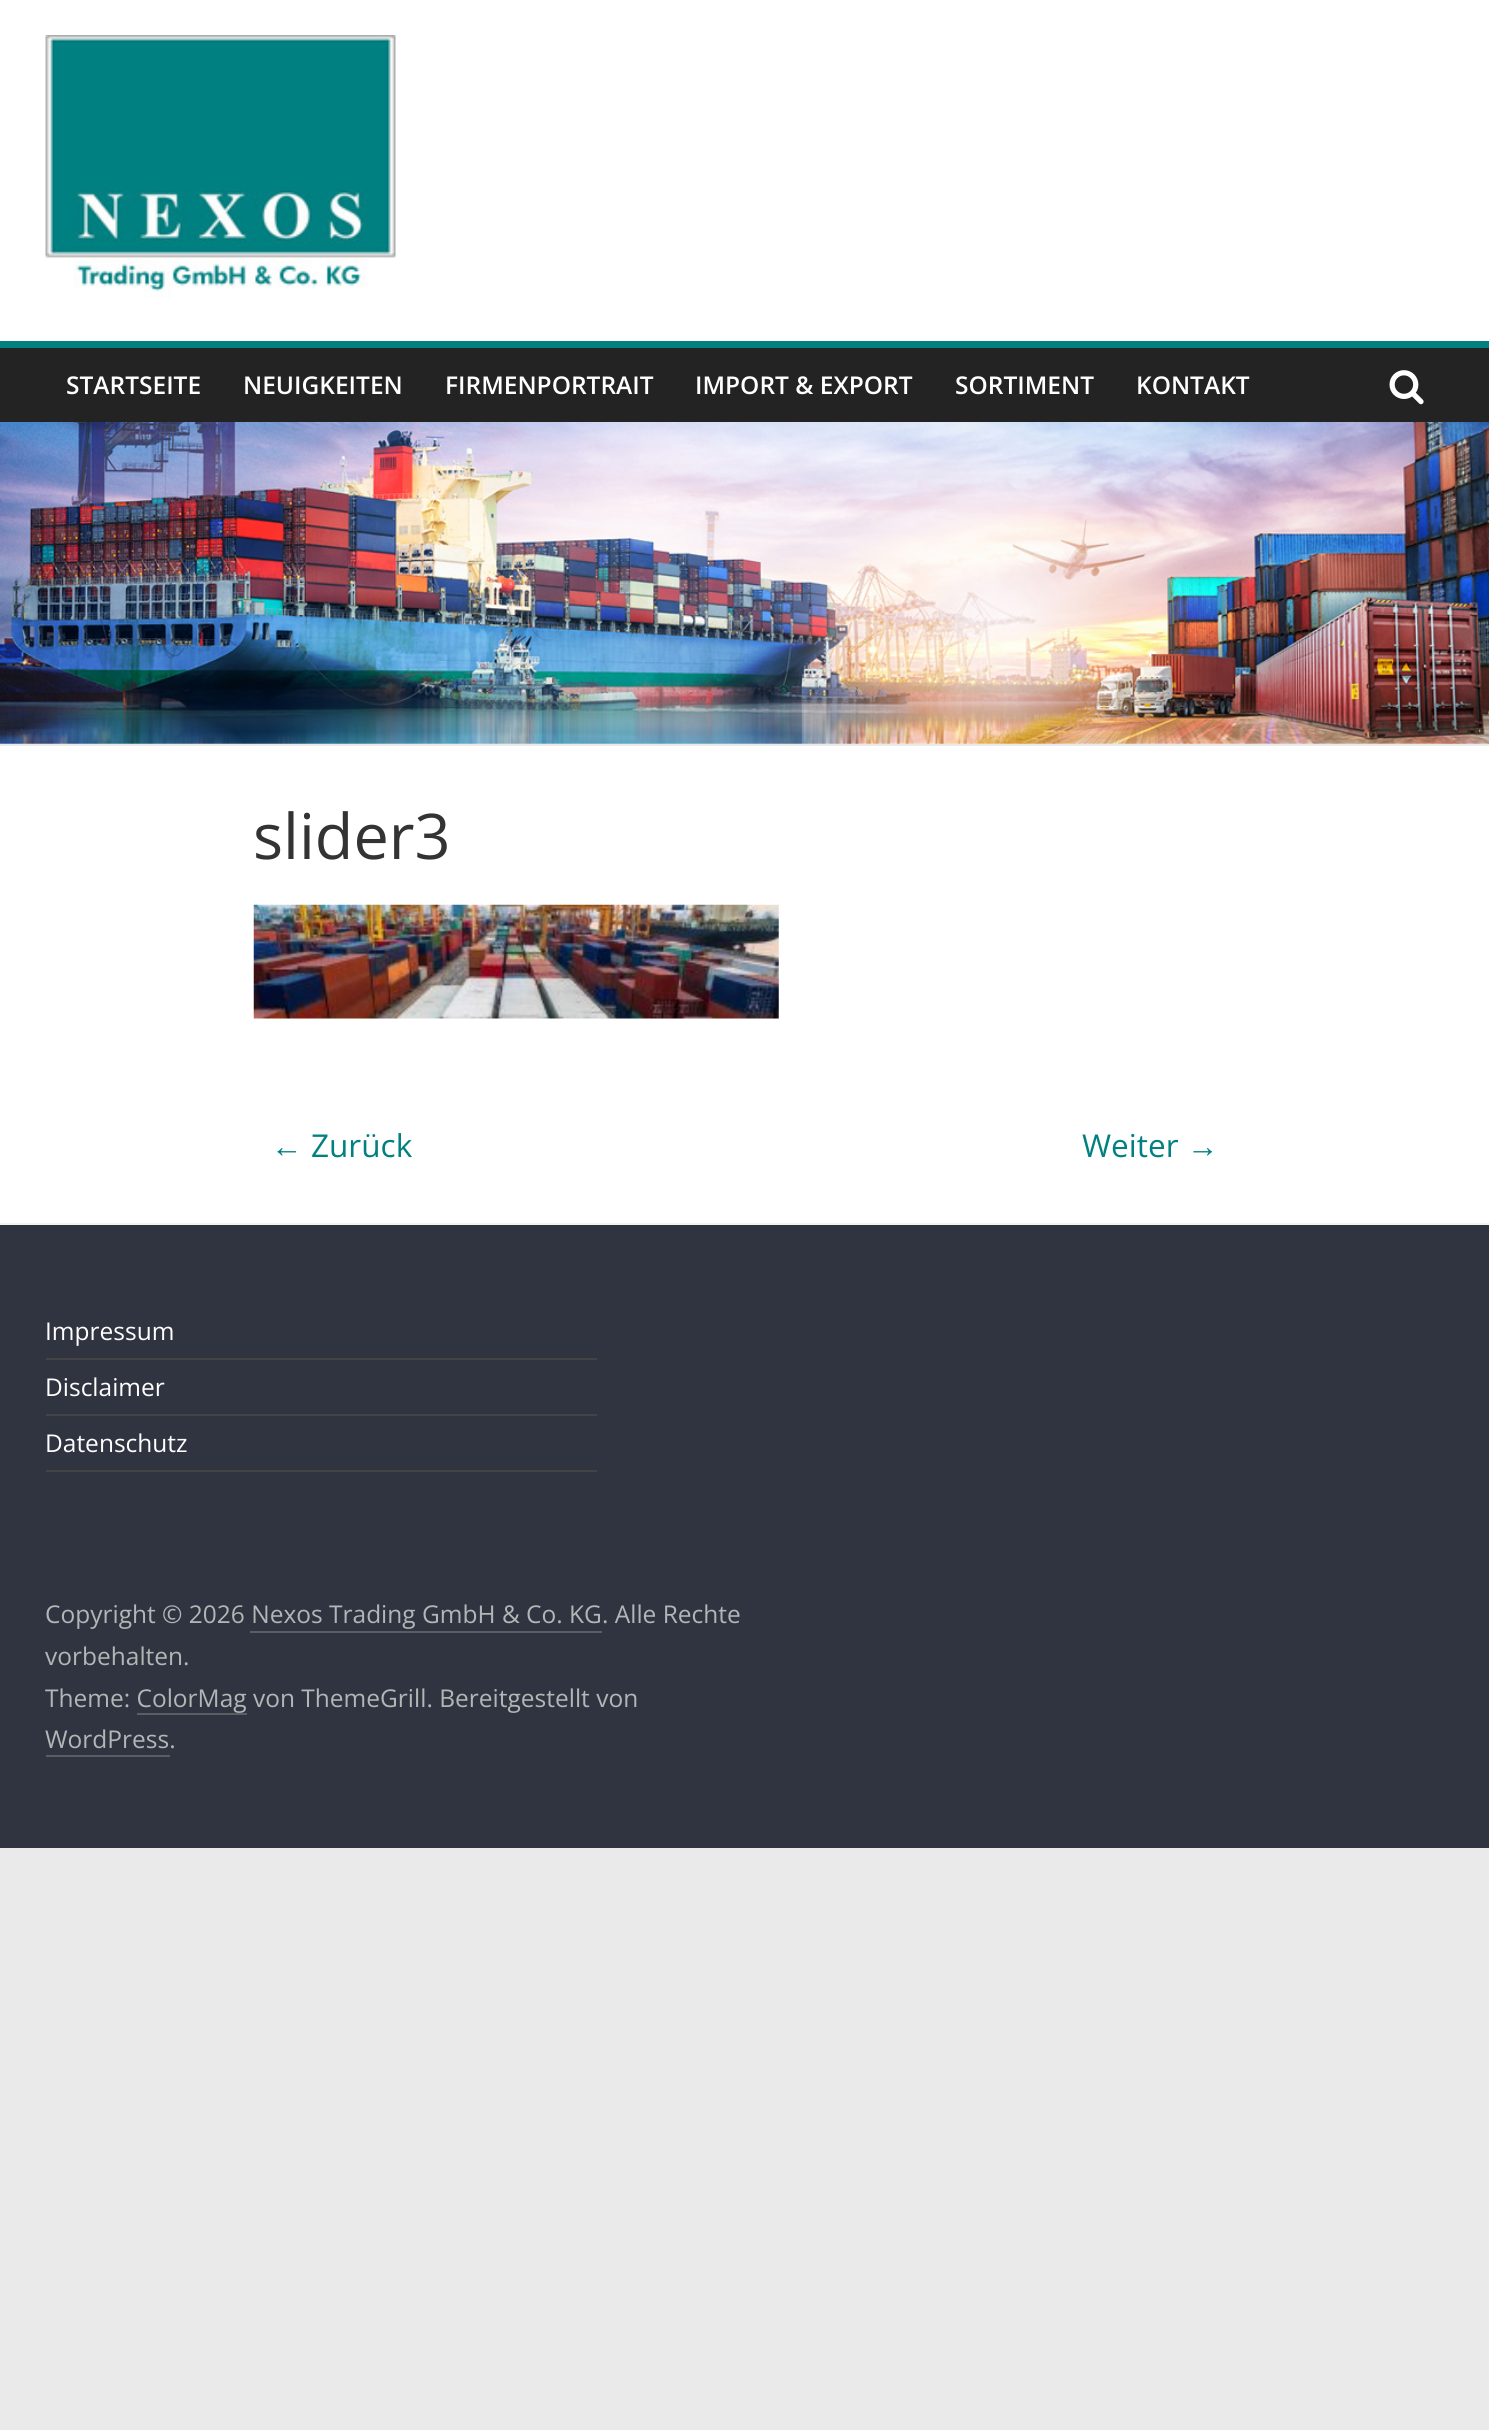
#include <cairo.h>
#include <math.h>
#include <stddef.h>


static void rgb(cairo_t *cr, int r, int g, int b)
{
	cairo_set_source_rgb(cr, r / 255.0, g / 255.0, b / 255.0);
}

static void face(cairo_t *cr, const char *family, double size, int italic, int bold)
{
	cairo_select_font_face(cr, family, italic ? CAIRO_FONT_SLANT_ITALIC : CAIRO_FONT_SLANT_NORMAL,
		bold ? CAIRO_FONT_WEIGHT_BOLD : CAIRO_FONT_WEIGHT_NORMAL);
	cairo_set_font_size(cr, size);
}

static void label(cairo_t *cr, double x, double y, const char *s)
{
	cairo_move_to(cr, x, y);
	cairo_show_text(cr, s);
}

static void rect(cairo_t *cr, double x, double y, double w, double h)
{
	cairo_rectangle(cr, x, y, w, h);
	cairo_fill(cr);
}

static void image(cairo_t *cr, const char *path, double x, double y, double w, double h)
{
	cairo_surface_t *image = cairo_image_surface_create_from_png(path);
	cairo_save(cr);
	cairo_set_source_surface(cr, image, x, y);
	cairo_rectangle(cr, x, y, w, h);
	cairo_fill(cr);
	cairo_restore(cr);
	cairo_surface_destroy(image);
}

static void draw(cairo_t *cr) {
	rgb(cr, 234, 234, 234);
	cairo_paint(cr);
	rgb(cr, 255, 255, 255);
	rect(cr, 0, 0, 1489, 744);
	image(cr, "image0.png", 45, 35, 351, 263);
	rgb(cr, 35, 35, 35);
	rect(cr, 0, 348, 1489, 74);
	rgb(cr, 0, 128, 129);
	rect(cr, 0, 341, 1489, 7);
	face(cr, "Open Sans SemiBold", 24.5, 0, 0);
	rgb(cr, 255, 255, 255);
	label(cr, 66, 394, "STARTSEITE");
	label(cr, 243, 394, "NEUIGKEITEN");
	label(cr, 445, 394, "FIRMENPORTRAIT");
	label(cr, 695, 394, "IMPORT & EXPORT");
	label(cr, 955, 394, "SORTIMENT");
	label(cr, 1136, 394, "KONTAKT");
	image(cr, "image1.png", 1389, 370, 35, 35);
	image(cr, "image2.png", 0, 422, 1489, 322);
	rect(cr, 0, 746, 1489, 477);
	face(cr, "Open Sans", 63, 0, 0);
	rgb(cr, 51, 51, 51);
	label(cr, 253, 859, "slider3");
	image(cr, "image3.png", 253, 904, 526, 115);
	face(cr, "Liberation Serif", 31.5, 0, 0);
	rgb(cr, 0, 128, 129);
	label(cr, 271, 1157, "←");
	face(cr, "Open Sans", 31.5, 0, 0);
	label(cr, 311, 1157, "Zurück");
	label(cr, 1082, 1157, "Weiter");
	face(cr, "Liberation Serif", 31.5, 0, 0);
	label(cr, 1187, 1157, "→");
	rgb(cr, 48, 52, 64);
	rect(cr, 0, 1225, 1489, 623);
	rgb(cr, 242, 242, 242);
	rect(cr, 0, 1223, 1489, 2);
	rgb(cr, 68, 68, 68);
	rect(cr, 46, 1358, 551, 2);
	face(cr, "Open Sans", 24.5, 0, 0);
	rgb(cr, 255, 255, 255);
	label(cr, 45, 1340, "Impressum");
	rgb(cr, 68, 68, 68);
	rect(cr, 46, 1414, 551, 2);
	rgb(cr, 255, 255, 255);
	label(cr, 45, 1396, "Disclaimer");
	rgb(cr, 68, 68, 68);
	rect(cr, 46, 1470, 551, 2);
	rgb(cr, 255, 255, 255);
	label(cr, 45, 1452, "Datenschutz");
	rgb(cr, 177, 182, 182);
	label(cr, 45, 1623, "Copyright © 2026 Nexos Trading GmbH & Co. KG. Alle Rechte");
	rgb(cr, 90, 93, 98);
	rect(cr, 250, 1631, 352, 2);
	rgb(cr, 177, 182, 182);
	label(cr, 45, 1665, "vorbehalten.");
	label(cr, 45, 1707, "Theme: ColorMag von ThemeGrill. Bereitgestellt von");
	rgb(cr, 90, 93, 98);
	rect(cr, 137, 1713, 110, 2);
	rgb(cr, 177, 182, 182);
	label(cr, 45, 1748, "WordPress.");
	rgb(cr, 90, 93, 98);
	rect(cr, 46, 1755, 124, 2);
}

int main(void) {
	cairo_surface_t *surface = cairo_image_surface_create(CAIRO_FORMAT_RGB24, 1489, 2430);
	cairo_t *cr = cairo_create(surface);
	cairo_font_options_t *options = cairo_font_options_create();
	cairo_font_options_set_hint_metrics(options, CAIRO_HINT_METRICS_OFF);
	cairo_font_options_set_hint_style(options, CAIRO_HINT_STYLE_NONE);
	cairo_set_font_options(cr, options);
	cairo_set_miter_limit(cr, 4);
	draw(cr);
	cairo_surface_write_to_png(surface, "render.png");
	cairo_font_options_destroy(options);
	cairo_destroy(cr);
	cairo_surface_destroy(surface);
	return 0;
}
